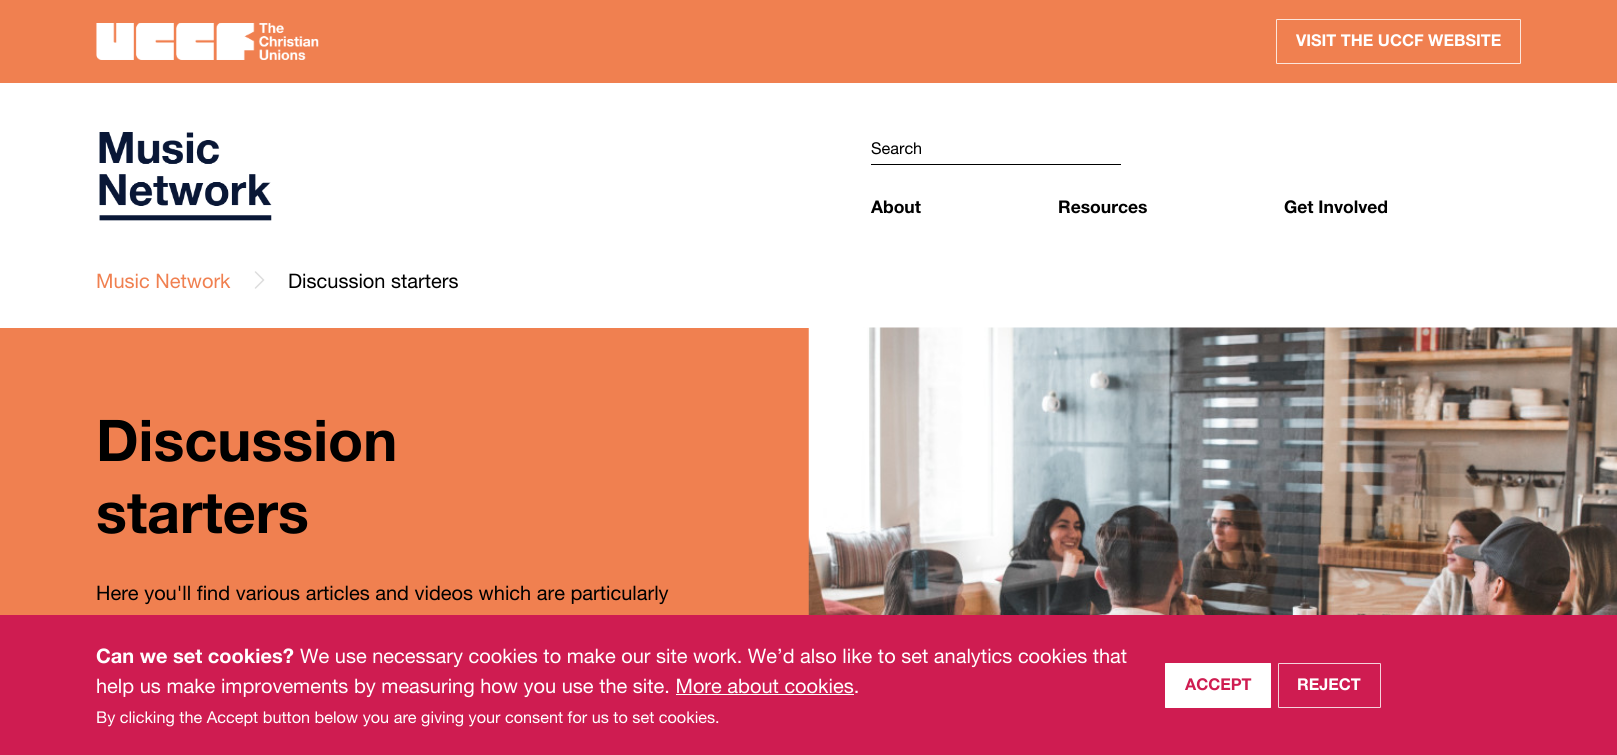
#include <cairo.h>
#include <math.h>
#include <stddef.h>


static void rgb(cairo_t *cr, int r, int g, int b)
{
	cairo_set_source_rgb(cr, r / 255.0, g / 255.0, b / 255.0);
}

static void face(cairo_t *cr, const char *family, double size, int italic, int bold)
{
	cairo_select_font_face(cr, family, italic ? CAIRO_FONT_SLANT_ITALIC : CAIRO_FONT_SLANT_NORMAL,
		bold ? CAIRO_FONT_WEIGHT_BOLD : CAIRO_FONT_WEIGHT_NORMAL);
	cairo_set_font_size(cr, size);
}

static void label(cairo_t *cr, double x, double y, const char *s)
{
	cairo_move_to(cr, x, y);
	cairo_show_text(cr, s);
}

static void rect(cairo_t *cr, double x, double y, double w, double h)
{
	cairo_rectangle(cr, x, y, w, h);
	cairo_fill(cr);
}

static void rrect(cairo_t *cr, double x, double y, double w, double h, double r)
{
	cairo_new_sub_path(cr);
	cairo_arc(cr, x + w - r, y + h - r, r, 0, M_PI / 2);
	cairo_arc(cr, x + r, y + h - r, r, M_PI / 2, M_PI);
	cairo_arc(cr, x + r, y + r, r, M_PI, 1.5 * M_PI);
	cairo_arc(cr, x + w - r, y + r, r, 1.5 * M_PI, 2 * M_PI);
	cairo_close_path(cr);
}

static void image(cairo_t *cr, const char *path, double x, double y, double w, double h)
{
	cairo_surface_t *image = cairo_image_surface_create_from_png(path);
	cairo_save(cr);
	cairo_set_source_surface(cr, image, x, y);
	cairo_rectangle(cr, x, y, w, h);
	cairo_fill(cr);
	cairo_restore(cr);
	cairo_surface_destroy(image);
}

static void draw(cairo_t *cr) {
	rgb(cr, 255, 255, 255);
	cairo_paint(cr);
	rgb(cr, 240, 128, 80);
	rect(cr, 0, 0, 1617, 83);
	image(cr, "image0.png", 96, 23, 223, 37);
	rrect(cr, 1276.5, 19.5, 244, 44, 0.5);
	rgb(cr, 252, 230, 220);
	cairo_set_line_width(cr, 1);
	cairo_stroke(cr);
	face(cr, "Helvetica Neue", 16.25, 0, 1);
	rgb(cr, 255, 255, 255);
	label(cr, 1296, 46, "VISIT THE UCCF WEBSITE");
	image(cr, "image1.png", 99, 132, 173, 89);
	rgb(cr, 0, 0, 0);
	rect(cr, 871, 164, 250, 1);
	face(cr, "Helvetica Neue", 16.25, 0, 0);
	label(cr, 871, 154, "Search");
	face(cr, "Helvetica Neue", 17.5, 0, 1);
	label(cr, 871, 213, "About");
	label(cr, 1058, 213, "Resources");
	label(cr, 1284, 213, "Get Involved");
	face(cr, "Helvetica Neue", 20, 0, 0);
	rgb(cr, 240, 128, 80);
	label(cr, 96, 288, "Music Network");
	cairo_new_path(cr);
	cairo_move_to(cr, 255.5, 272);
	cairo_line_to(cr, 263.5, 280);
	cairo_line_to(cr, 255.5, 288);
	rgb(cr, 221, 221, 221);
	cairo_set_line_width(cr, 1.5);
	cairo_set_line_cap(cr, CAIRO_LINE_CAP_ROUND);
	cairo_stroke(cr);
	rgb(cr, 0, 0, 0);
	label(cr, 288, 288, "Discussion starters");
	rgb(cr, 240, 128, 80);
	rect(cr, 0, 328, 809, 287);
	face(cr, "Helvetica Neue", 57.5, 0, 1);
	rgb(cr, 0, 0, 0);
	label(cr, 96, 461, "Discussion");
	label(cr, 96, 533, "starters");
	face(cr, "Helvetica Neue", 20, 0, 0);
	label(cr, 96, 600, "Here you'll find various articles and videos which are particularly");
	image(cr, "image2.png", 808, 327, 809, 288);
	rgb(cr, 207, 28, 81);
	rect(cr, 0, 615, 1617, 140);
	face(cr, "Helvetica Neue", 20, 0, 1);
	rgb(cr, 255, 255, 255);
	label(cr, 96, 663, "Can we set cookies?");
	face(cr, "Helvetica Neue", 20, 0, 0);
	label(cr, 300, 663, "We use necessary cookies to make our site work. We’d also like to set analytics cookies that");
	label(cr, 96, 693, "help us make improvements by measuring how you use the site. More about cookies.");
	rect(cr, 676, 694, 178, 1);
	face(cr, "Helvetica Neue", 16.25, 0, 0);
	label(cr, 96, 723, "By clicking the Accept button below you are giving your consent for us to set cookies.");
	rrect(cr, 1165, 663, 106, 45, 1);
	cairo_fill(cr);
	rrect(cr, 1165.5, 663.5, 105, 44, 0.5);
	cairo_set_source_rgba(cr, 1, 1, 1, 0.8);
	cairo_set_line_width(cr, 1);
	cairo_set_line_cap(cr, CAIRO_LINE_CAP_BUTT);
	cairo_stroke(cr);
	face(cr, "Helvetica Neue", 16.25, 0, 1);
	rgb(cr, 207, 28, 81);
	label(cr, 1185, 690, "ACCEPT");
	rrect(cr, 1278.5, 663.5, 102, 44, 0.5);
	rgb(cr, 245, 210, 220);
	cairo_stroke(cr);
	rgb(cr, 255, 255, 255);
	label(cr, 1297, 690, "REJECT");
}

int main(void) {
	cairo_surface_t *surface = cairo_image_surface_create(CAIRO_FORMAT_RGB24, 1617, 755);
	cairo_t *cr = cairo_create(surface);
	cairo_font_options_t *options = cairo_font_options_create();
	cairo_font_options_set_hint_metrics(options, CAIRO_HINT_METRICS_OFF);
	cairo_font_options_set_hint_style(options, CAIRO_HINT_STYLE_NONE);
	cairo_set_font_options(cr, options);
	cairo_set_miter_limit(cr, 4);
	draw(cr);
	cairo_surface_write_to_png(surface, "render.png");
	cairo_font_options_destroy(options);
	cairo_destroy(cr);
	cairo_surface_destroy(surface);
	return 0;
}
